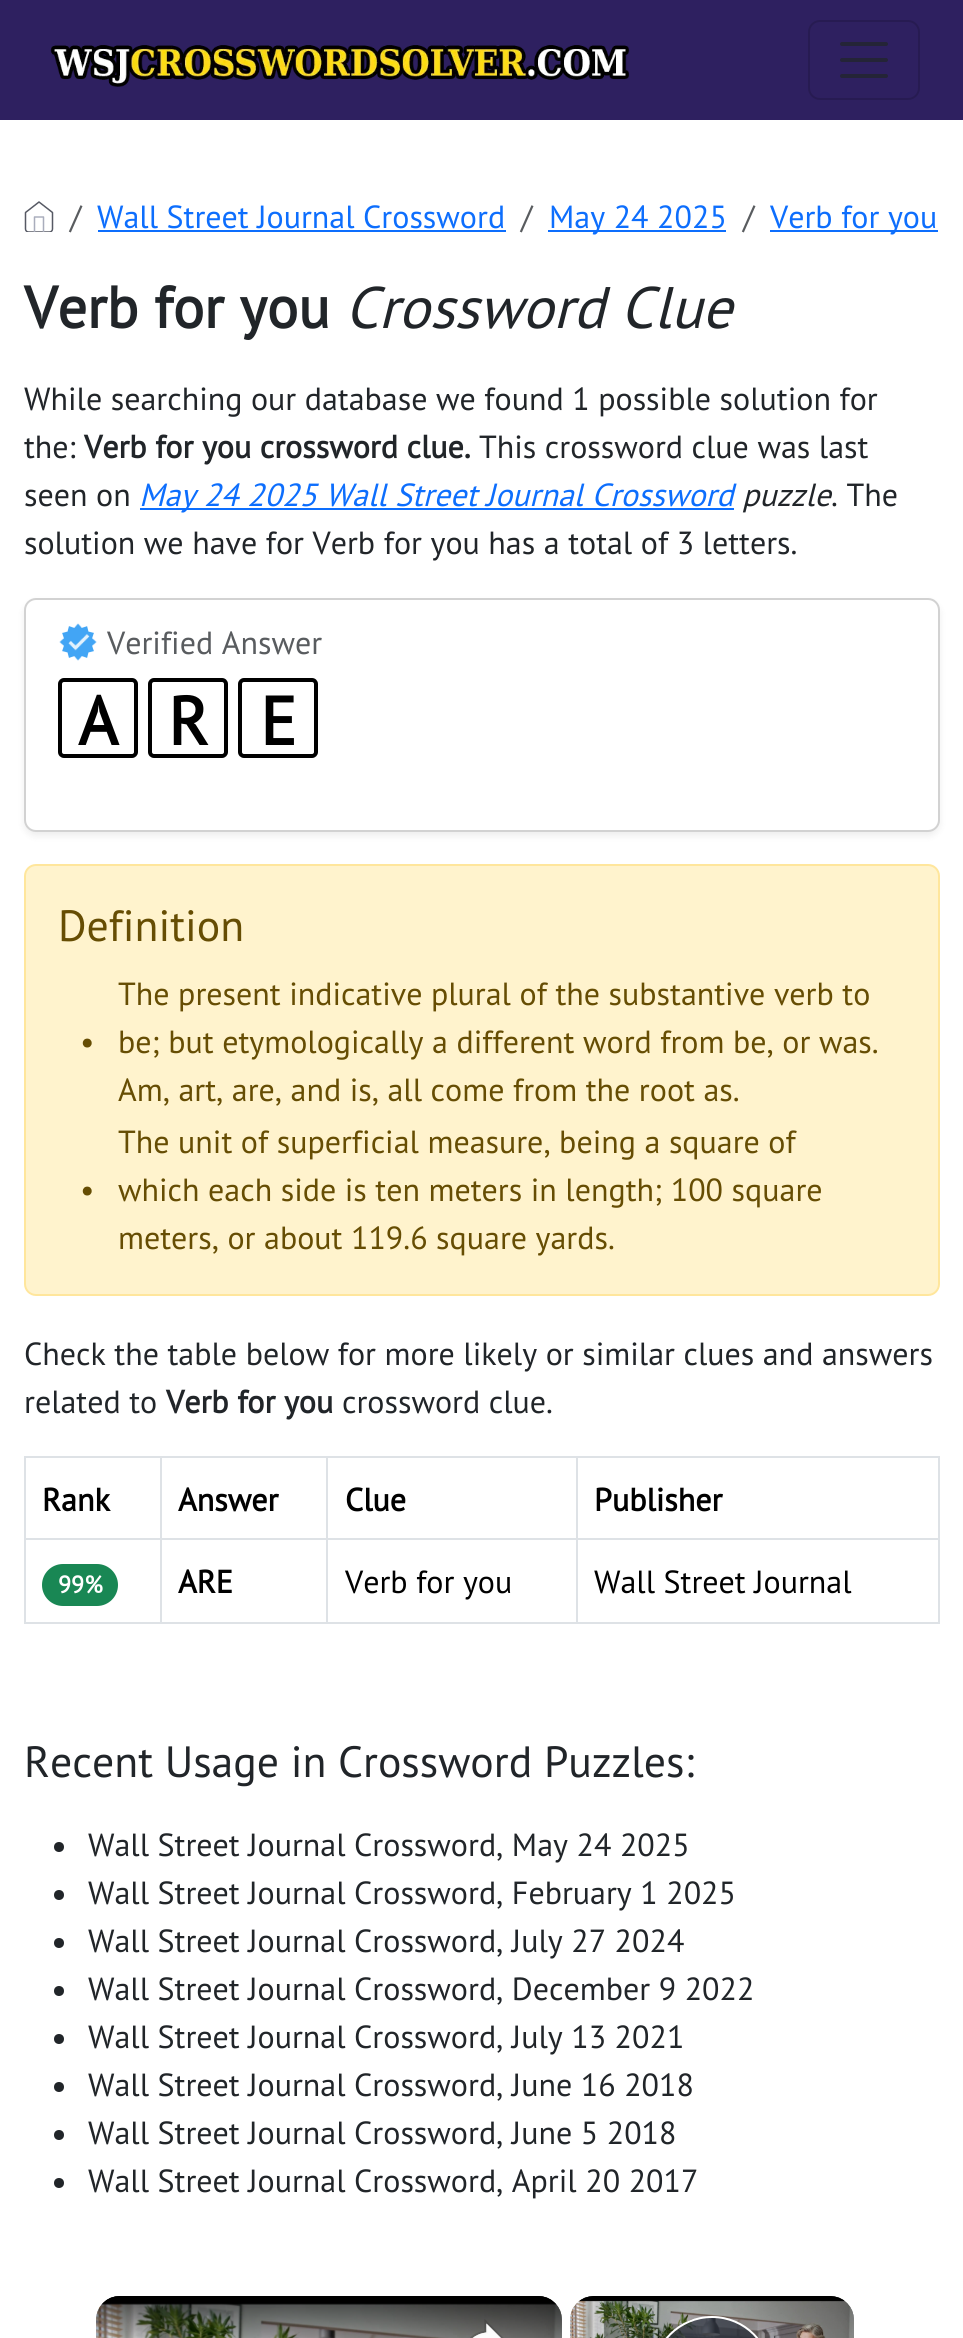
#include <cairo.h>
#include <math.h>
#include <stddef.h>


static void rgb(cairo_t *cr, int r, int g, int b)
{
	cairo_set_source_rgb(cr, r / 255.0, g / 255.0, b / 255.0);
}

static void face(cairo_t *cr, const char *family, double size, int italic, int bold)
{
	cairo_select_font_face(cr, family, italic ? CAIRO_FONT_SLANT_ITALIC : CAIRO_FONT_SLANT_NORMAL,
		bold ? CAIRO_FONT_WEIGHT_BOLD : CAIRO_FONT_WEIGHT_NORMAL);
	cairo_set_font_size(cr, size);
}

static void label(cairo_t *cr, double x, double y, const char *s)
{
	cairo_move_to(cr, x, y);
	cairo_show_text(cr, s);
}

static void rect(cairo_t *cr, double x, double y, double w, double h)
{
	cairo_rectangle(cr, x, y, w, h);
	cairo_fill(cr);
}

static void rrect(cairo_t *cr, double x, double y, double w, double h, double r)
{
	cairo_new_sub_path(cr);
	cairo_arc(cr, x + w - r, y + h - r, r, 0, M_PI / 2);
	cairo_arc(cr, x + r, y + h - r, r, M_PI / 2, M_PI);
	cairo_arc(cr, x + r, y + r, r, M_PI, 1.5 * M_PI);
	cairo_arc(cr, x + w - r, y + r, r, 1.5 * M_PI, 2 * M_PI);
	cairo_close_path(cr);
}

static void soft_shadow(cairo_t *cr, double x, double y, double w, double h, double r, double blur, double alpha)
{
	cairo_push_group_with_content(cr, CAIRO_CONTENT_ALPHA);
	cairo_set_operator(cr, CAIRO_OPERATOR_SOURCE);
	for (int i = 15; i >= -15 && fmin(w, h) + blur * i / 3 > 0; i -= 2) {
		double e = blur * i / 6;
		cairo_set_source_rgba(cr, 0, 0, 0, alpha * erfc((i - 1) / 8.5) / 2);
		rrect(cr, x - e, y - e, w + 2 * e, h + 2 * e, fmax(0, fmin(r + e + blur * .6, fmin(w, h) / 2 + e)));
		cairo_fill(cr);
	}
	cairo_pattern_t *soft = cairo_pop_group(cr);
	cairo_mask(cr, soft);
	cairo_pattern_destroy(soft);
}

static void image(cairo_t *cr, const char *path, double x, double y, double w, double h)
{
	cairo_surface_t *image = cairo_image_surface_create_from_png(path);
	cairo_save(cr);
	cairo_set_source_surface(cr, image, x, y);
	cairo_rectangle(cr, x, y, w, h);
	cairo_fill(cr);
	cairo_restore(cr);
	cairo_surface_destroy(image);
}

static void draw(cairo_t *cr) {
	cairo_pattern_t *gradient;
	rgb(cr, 255, 255, 255);
	cairo_paint(cr);
	rgb(cr, 46, 32, 96);
	rect(cr, 0, 0, 963, 120);
	image(cr, "image0.png", 50, 45, 580, 42);
	rrect(cr, 809, 21, 110, 78, 11);
	rgb(cr, 39, 27, 82);
	cairo_stroke(cr);
	cairo_new_path(cr);
	cairo_move_to(cr, 842, 44);
	cairo_line_to(cr, 886, 44);
	cairo_move_to(cr, 842, 60);
	cairo_line_to(cr, 886, 60);
	cairo_move_to(cr, 842, 76);
	cairo_line_to(cr, 886, 76);
	rgb(cr, 36, 36, 55);
	cairo_set_line_width(cr, 4);
	cairo_set_line_cap(cr, CAIRO_LINE_CAP_ROUND);
	cairo_stroke(cr);
	image(cr, "image1.png", 24, 201, 30, 31);
	face(cr, "PT Sans", 32, 0, 0);
	rgb(cr, 89, 92, 95);
	label(cr, 70, 228, "/");
	rgb(cr, 13, 110, 253);
	label(cr, 97, 228, "Wall Street Journal Crossword");
	rect(cr, 98, 230, 408, 2);
	rgb(cr, 89, 92, 95);
	label(cr, 521, 228, "/");
	rgb(cr, 13, 110, 253);
	rect(cr, 548, 230, 178, 2);
	label(cr, 549, 228, "May 24 2025");
	rgb(cr, 89, 92, 95);
	label(cr, 743, 228, "/");
	rgb(cr, 13, 110, 253);
	rect(cr, 770, 230, 168, 2);
	label(cr, 770, 228, "Verb for you");
	face(cr, "PT Sans", 58.5, 0, 1);
	rgb(cr, 33, 37, 41);
	label(cr, 24, 328, "Verb for you");
	face(cr, "PT Sans", 58.5, 1, 0);
	label(cr, 345, 328, "Crossword Clue");
	face(cr, "PT Sans", 32, 0, 0);
	label(cr, 24, 410, "While searching our database we found 1 possible solution for");
	label(cr, 24, 458, "the:");
	face(cr, "PT Sans", 32, 0, 1);
	label(cr, 84, 458, "Verb for you crossword clue.");
	face(cr, "PT Sans", 32, 0, 0);
	label(cr, 479, 458, "This crossword clue was last");
	label(cr, 24, 506, "seen on");
	rgb(cr, 13, 110, 253);
	rect(cr, 140, 508, 594, 2);
	face(cr, "PT Sans", 32, 1, 0);
	label(cr, 139, 506, "May 24 2025 Wall Street Journal Crossword");
	rgb(cr, 33, 37, 41);
	label(cr, 742, 506, "puzzle");
	face(cr, "PT Sans", 32, 0, 0);
	label(cr, 831, 506, ". The");
	label(cr, 24, 554, "solution we have for Verb for you has a total of 3 letters.");
	rgb(cr, 0, 0, 0);
	soft_shadow(cr, 24, 602, 916, 234, 12, 4, 0.07);
	rgb(cr, 255, 255, 255);
	rrect(cr, 25, 599, 914, 232, 11);
	cairo_fill_preserve(cr);
	rgb(cr, 210, 210, 210);
	cairo_set_line_width(cr, 2);
	cairo_set_line_cap(cr, CAIRO_LINE_CAP_BUTT);
	cairo_stroke(cr);
	image(cr, "image2.png", 59, 623, 38, 38);
	rgb(cr, 89, 92, 95);
	label(cr, 107, 654, "Verified Answer");
	rrect(cr, 60, 680, 76, 76, 4);
	rgb(cr, 0, 0, 0);
	cairo_set_line_width(cr, 4);
	cairo_stroke(cr);
	face(cr, "PT Sans", 68, 0, 1);
	label(cr, 78, 745, "A");
	rrect(cr, 150, 680, 76, 76, 4);
	cairo_stroke(cr);
	label(cr, 168, 745, "R");
	rrect(cr, 240, 680, 76, 76, 4);
	cairo_stroke(cr);
	label(cr, 260, 745, "E");
	rgb(cr, 255, 243, 205);
	rrect(cr, 25, 865, 914, 430, 11);
	cairo_fill_preserve(cr);
	rgb(cr, 255, 230, 156);
	cairo_set_line_width(cr, 2);
	cairo_stroke(cr);
	face(cr, "PT Sans", 43.75, 0, 0);
	rgb(cr, 102, 77, 3);
	label(cr, 58, 941, "Definition");
	face(cr, "PT Sans", 32, 0, 0);
	label(cr, 80, 1053, "•");
	label(cr, 118, 1005, "The present indicative plural of the substantive verb to");
	label(cr, 118, 1053, "be; but etymologically a different word from be, or was.");
	label(cr, 118, 1101, "Am, art, are, and is, all come from the root as.");
	label(cr, 80, 1201, "•");
	label(cr, 118, 1153, "The unit of superficial measure, being a square of");
	label(cr, 118, 1201, "which each side is ten meters in length; 100 square");
	label(cr, 118, 1249, "meters, or about 119.6 square yards.");
	rgb(cr, 33, 37, 41);
	label(cr, 24, 1365, "Check the table below for more likely or similar clues and answers");
	label(cr, 24, 1413, "related to");
	face(cr, "PT Sans", 32, 0, 1);
	label(cr, 166, 1413, "Verb for you");
	face(cr, "PT Sans", 32, 0, 0);
	label(cr, 342, 1413, "crossword clue.");
	rgb(cr, 222, 226, 230);
	rect(cr, 24, 1456, 916, 2);
	face(cr, "PT Sans", 32, 0, 1);
	rgb(cr, 0, 0, 0);
	label(cr, 42, 1511, "Rank");
	label(cr, 178, 1511, "Answer");
	label(cr, 345, 1511, "Clue");
	label(cr, 594, 1511, "Publisher");
	rgb(cr, 222, 226, 230);
	rect(cr, 24, 1538, 916, 2);
	rect(cr, 24, 1622, 916, 2);
	rect(cr, 24, 1456, 2, 168);
	rgb(cr, 25, 135, 84);
	rrect(cr, 42, 1564, 76, 42, 21);
	cairo_fill(cr);
	face(cr, "PT Sans", 24, 0, 1);
	rgb(cr, 255, 255, 255);
	label(cr, 58, 1593, "99%");
	rgb(cr, 222, 226, 230);
	rect(cr, 160, 1456, 2, 168);
	face(cr, "PT Sans", 32, 0, 1);
	rgb(cr, 0, 0, 0);
	label(cr, 178, 1593, "ARE");
	rgb(cr, 222, 226, 230);
	rect(cr, 326, 1456, 2, 168);
	face(cr, "PT Sans", 32, 0, 0);
	rgb(cr, 0, 0, 0);
	label(cr, 345, 1593, "Verb for you");
	rgb(cr, 222, 226, 230);
	rect(cr, 938, 1456, 2, 168);
	rect(cr, 576, 1456, 2, 168);
	rgb(cr, 0, 0, 0);
	label(cr, 594, 1593, "Wall Street Journal");
	face(cr, "PT Sans", 43.75, 0, 0);
	rgb(cr, 33, 37, 41);
	label(cr, 24, 1777, "Recent Usage in Crossword Puzzles:");
	cairo_new_path(cr);
	cairo_arc(cr, 59, 1847, 5, 0, 2 * M_PI);
	cairo_fill(cr);
	face(cr, "PT Sans", 32, 0, 0);
	label(cr, 88, 1856, "Wall Street Journal Crossword, May 24 2025");
	cairo_new_path(cr);
	cairo_arc(cr, 59, 1895, 5, 0, 2 * M_PI);
	cairo_fill(cr);
	label(cr, 88, 1904, "Wall Street Journal Crossword, February 1 2025");
	cairo_new_path(cr);
	cairo_arc(cr, 59, 1943, 5, 0, 2 * M_PI);
	cairo_fill(cr);
	label(cr, 88, 1952, "Wall Street Journal Crossword, July 27 2024");
	cairo_new_path(cr);
	cairo_arc(cr, 59, 1991, 5, 0, 2 * M_PI);
	cairo_fill(cr);
	label(cr, 88, 2000, "Wall Street Journal Crossword, December 9 2022");
	cairo_new_path(cr);
	cairo_arc(cr, 59, 2039, 5, 0, 2 * M_PI);
	cairo_fill(cr);
	label(cr, 88, 2048, "Wall Street Journal Crossword, July 13 2021");
	cairo_new_path(cr);
	cairo_arc(cr, 59, 2087, 5, 0, 2 * M_PI);
	cairo_fill(cr);
	label(cr, 88, 2096, "Wall Street Journal Crossword, June 16 2018");
	cairo_new_path(cr);
	cairo_arc(cr, 59, 2135, 5, 0, 2 * M_PI);
	cairo_fill(cr);
	label(cr, 88, 2144, "Wall Street Journal Crossword, June 5 2018");
	cairo_new_path(cr);
	cairo_arc(cr, 59, 2183, 5, 0, 2 * M_PI);
	cairo_fill(cr);
	label(cr, 88, 2192, "Wall Street Journal Crossword, April 20 2017");
	image(cr, "image3.png", 96, 2296, 466, 42);
	image(cr, "image4.png", 96, 2296, 466, 42);
	gradient = cairo_pattern_create_linear(329, 2296, 329, 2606);
	cairo_pattern_add_color_stop_rgba(gradient, 0, 0, 0, 0, 0.6);
	cairo_pattern_add_color_stop_rgba(gradient, 0.16, 0, 0, 0, 0);
	cairo_pattern_add_color_stop_rgba(gradient, 0.84, 0, 0, 0, 0);
	cairo_pattern_add_color_stop_rgba(gradient, 1, 0, 0, 0, 0.8);
	cairo_set_source(cr, gradient);
	cairo_pattern_destroy(gradient);
	rrect(cr, 96, 2296, 466, 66, 24);
	cairo_fill(cr);
	image(cr, "image5.png", 470, 2319, 34, 19);
	image(cr, "image6.png", 570, 2296, 284, 42);
	image(cr, "image7.png", 570, 2296, 284, 24);
	cairo_set_source_rgba(cr, 0.169, 0.2, 0.247, 0.7);
	rrect(cr, 653, 2317, 118, 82, 59);
	cairo_fill_preserve(cr);
	rgb(cr, 255, 255, 255);
	cairo_stroke(cr);
}

int main(void) {
	cairo_surface_t *surface = cairo_image_surface_create(CAIRO_FORMAT_RGB24, 963, 2338);
	cairo_t *cr = cairo_create(surface);
	cairo_font_options_t *options = cairo_font_options_create();
	cairo_font_options_set_hint_metrics(options, CAIRO_HINT_METRICS_OFF);
	cairo_font_options_set_hint_style(options, CAIRO_HINT_STYLE_NONE);
	cairo_set_font_options(cr, options);
	cairo_set_miter_limit(cr, 4);
	draw(cr);
	cairo_surface_write_to_png(surface, "render.png");
	cairo_font_options_destroy(options);
	cairo_destroy(cr);
	cairo_surface_destroy(surface);
	return 0;
}
